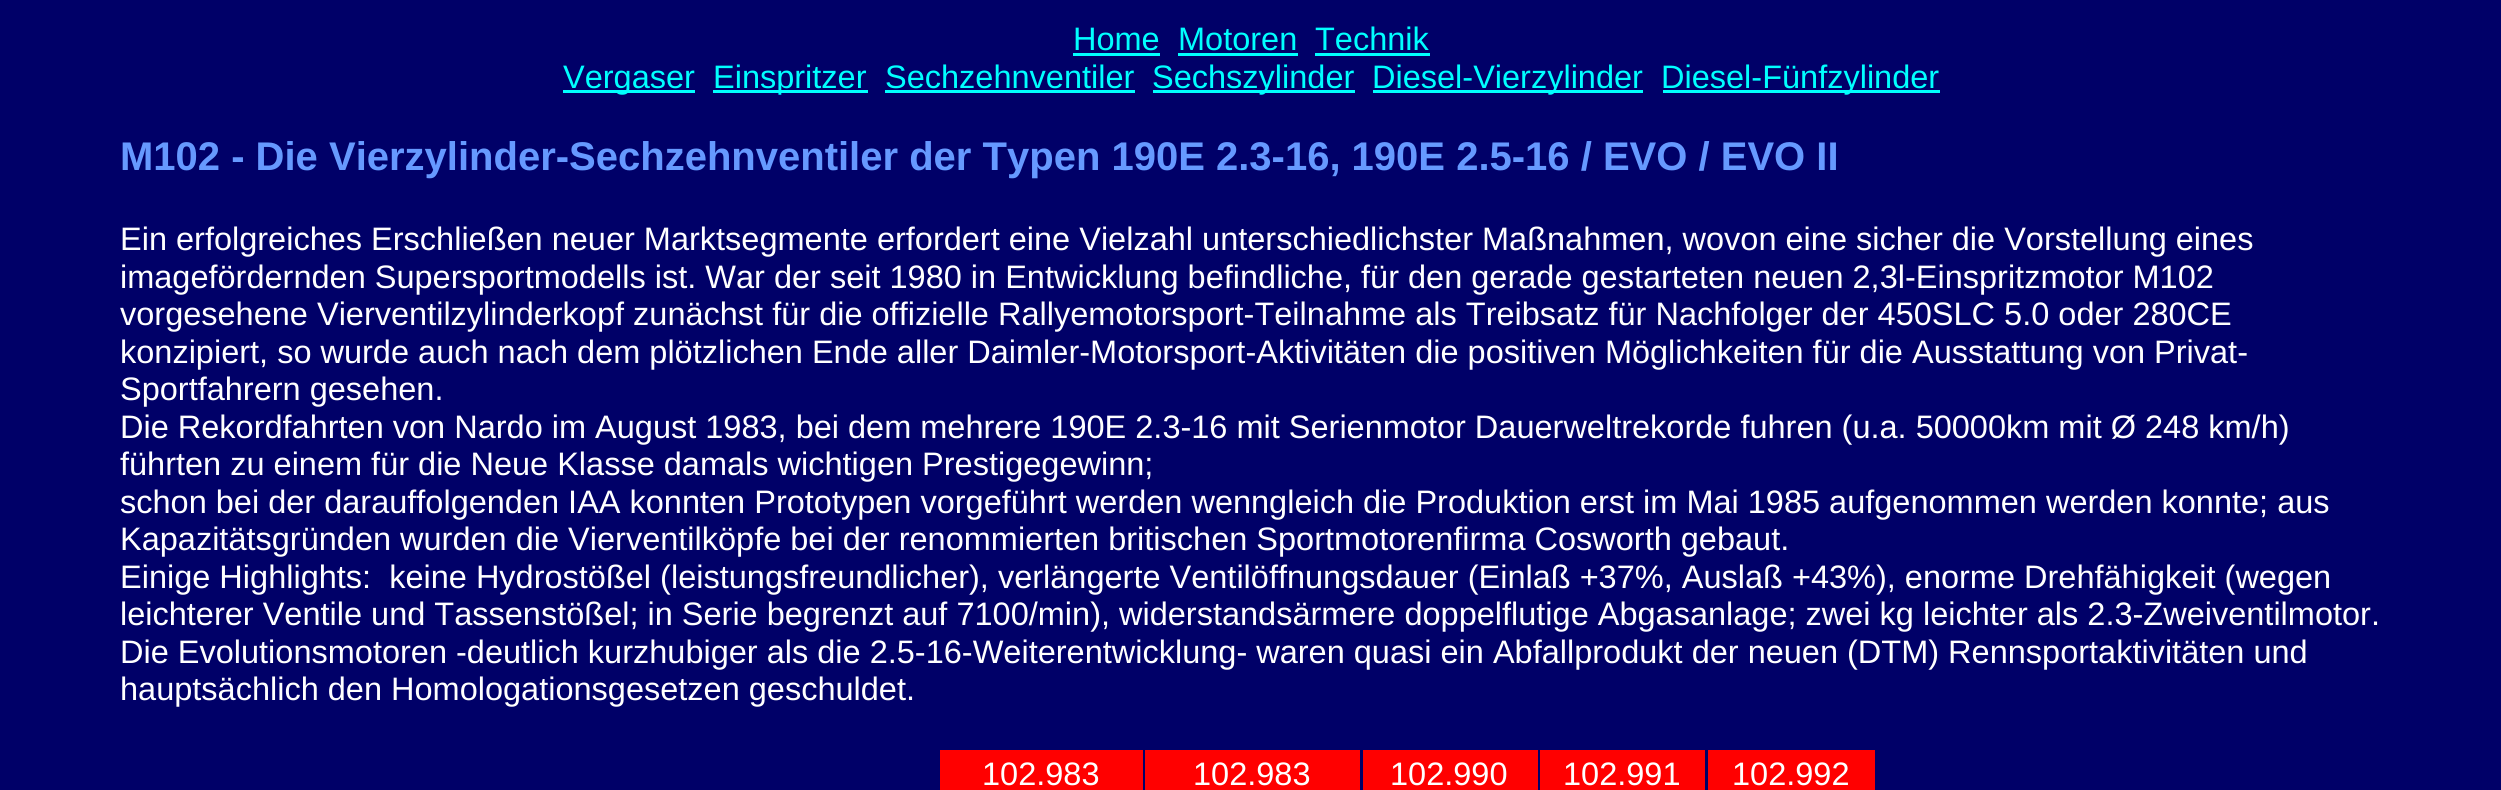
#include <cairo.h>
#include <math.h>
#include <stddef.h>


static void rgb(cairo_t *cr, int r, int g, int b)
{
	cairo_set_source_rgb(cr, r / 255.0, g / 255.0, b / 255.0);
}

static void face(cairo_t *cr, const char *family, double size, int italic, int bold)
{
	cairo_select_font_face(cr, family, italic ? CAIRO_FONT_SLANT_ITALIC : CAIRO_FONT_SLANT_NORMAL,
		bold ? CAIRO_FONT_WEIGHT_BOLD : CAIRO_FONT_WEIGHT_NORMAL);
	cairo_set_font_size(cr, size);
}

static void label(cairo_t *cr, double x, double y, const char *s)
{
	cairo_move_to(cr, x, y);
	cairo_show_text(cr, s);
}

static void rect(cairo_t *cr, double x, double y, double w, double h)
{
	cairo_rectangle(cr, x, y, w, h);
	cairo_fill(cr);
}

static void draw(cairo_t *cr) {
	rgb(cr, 0, 0, 104);
	cairo_paint(cr);
	face(cr, "Liberation Sans", 32.5, 0, 0);
	rgb(cr, 0, 255, 255);
	label(cr, 1073, 50, "Home");
	rect(cr, 1073, 53, 87, 3);
	label(cr, 1178, 50, "Motoren");
	rect(cr, 1178, 53, 120, 3);
	label(cr, 1315, 50, "Technik");
	rect(cr, 1315, 53, 115, 3);
	rect(cr, 563, 90, 132, 3);
	label(cr, 563, 88, "Vergaser");
	rect(cr, 713, 90, 155, 3);
	label(cr, 713, 88, "Einspritzer");
	label(cr, 885, 88, "Sechzehnventiler");
	rect(cr, 885, 90, 250, 3);
	rect(cr, 1153, 90, 202, 3);
	label(cr, 1152, 88, "Sechszylinder");
	rect(cr, 1373, 90, 270, 3);
	label(cr, 1372, 88, "Diesel-Vierzylinder");
	rect(cr, 1663, 90, 277, 3);
	label(cr, 1661, 88, "Diesel-Fünfzylinder");
	face(cr, "Liberation Sans", 40, 0, 1);
	rgb(cr, 102, 153, 255);
	label(cr, 120, 170, "M102 - Die Vierzylinder-Sechzehnventiler der Typen 190E 2.3-16, 190E 2.5-16 / EVO / EVO II");
	face(cr, "Liberation Sans", 32.5, 0, 0);
	rgb(cr, 255, 255, 255);
	label(cr, 120, 250, "Ein erfolgreiches Erschließen neuer Marktsegmente erfordert eine Vielzahl unterschiedlichster Maßnahmen, wovon eine sicher die Vorstellung eines");
	label(cr, 120, 288, "imagefördernden Supersportmodells ist. War der seit 1980 in Entwicklung befindliche, für den gerade gestarteten neuen 2,3l-Einspritzmotor M102");
	label(cr, 120, 325, "vorgesehene Vierventilzylinderkopf zunächst für die offizielle Rallyemotorsport-Teilnahme als Treibsatz für Nachfolger der 450SLC 5.0 oder 280CE");
	label(cr, 120, 363, "konzipiert, so wurde auch nach dem plötzlichen Ende aller Daimler-Motorsport-Aktivitäten die positiven Möglichkeiten für die Ausstattung von Privat-");
	label(cr, 120, 400, "Sportfahrern gesehen.");
	label(cr, 120, 438, "Die Rekordfahrten von Nardo im August 1983, bei dem mehrere 190E 2.3-16 mit Serienmotor Dauerweltrekorde fuhren (u.a. 50000km mit Ø 248 km/h)");
	label(cr, 120, 475, "führten zu einem für die Neue Klasse damals wichtigen Prestigegewinn;");
	label(cr, 120, 513, "schon bei der darauffolgenden IAA konnten Prototypen vorgeführt werden wenngleich die Produktion erst im Mai 1985 aufgenommen werden konnte; aus");
	label(cr, 120, 550, "Kapazitätsgründen wurden die Vierventilköpfe bei der renommierten britischen Sportmotorenfirma Cosworth gebaut.");
	label(cr, 120, 588, "Einige Highlights:  keine Hydrostößel (leistungsfreundlicher), verlängerte Ventilöffnungsdauer (Einlaß +37%, Auslaß +43%), enorme Drehfähigkeit (wegen");
	label(cr, 120, 625, "leichterer Ventile und Tassenstößel; in Serie begrenzt auf 7100/min), widerstandsärmere doppelflutige Abgasanlage; zwei kg leichter als 2.3-Zweiventilmotor.");
	label(cr, 120, 663, "Die Evolutionsmotoren -deutlich kurzhubiger als die 2.5-16-Weiterentwicklung- waren quasi ein Abfallprodukt der neuen (DTM) Rennsportaktivitäten und");
	label(cr, 120, 700, "hauptsächlich den Homologationsgesetzen geschuldet.");
	rgb(cr, 255, 0, 0);
	rect(cr, 940, 750, 203, 40);
	rgb(cr, 255, 255, 255);
	label(cr, 982, 785, "102.983");
	rgb(cr, 255, 0, 0);
	rect(cr, 1145, 750, 215, 40);
	rgb(cr, 255, 255, 255);
	label(cr, 1193, 785, "102.983");
	rgb(cr, 255, 0, 0);
	rect(cr, 1363, 750, 175, 40);
	rgb(cr, 255, 255, 255);
	label(cr, 1390, 785, "102.990");
	rgb(cr, 255, 0, 0);
	rect(cr, 1540, 750, 165, 40);
	rgb(cr, 255, 255, 255);
	label(cr, 1563, 785, "102.991");
	rgb(cr, 255, 0, 0);
	rect(cr, 1708, 750, 167, 40);
	rgb(cr, 255, 255, 255);
	label(cr, 1732, 785, "102.992");
}

int main(void) {
	cairo_surface_t *surface = cairo_image_surface_create(CAIRO_FORMAT_RGB24, 2501, 790);
	cairo_t *cr = cairo_create(surface);
	cairo_font_options_t *options = cairo_font_options_create();
	cairo_font_options_set_hint_metrics(options, CAIRO_HINT_METRICS_OFF);
	cairo_font_options_set_hint_style(options, CAIRO_HINT_STYLE_NONE);
	cairo_set_font_options(cr, options);
	cairo_set_miter_limit(cr, 4);
	draw(cr);
	cairo_surface_write_to_png(surface, "render.png");
	cairo_font_options_destroy(options);
	cairo_destroy(cr);
	cairo_surface_destroy(surface);
	return 0;
}
